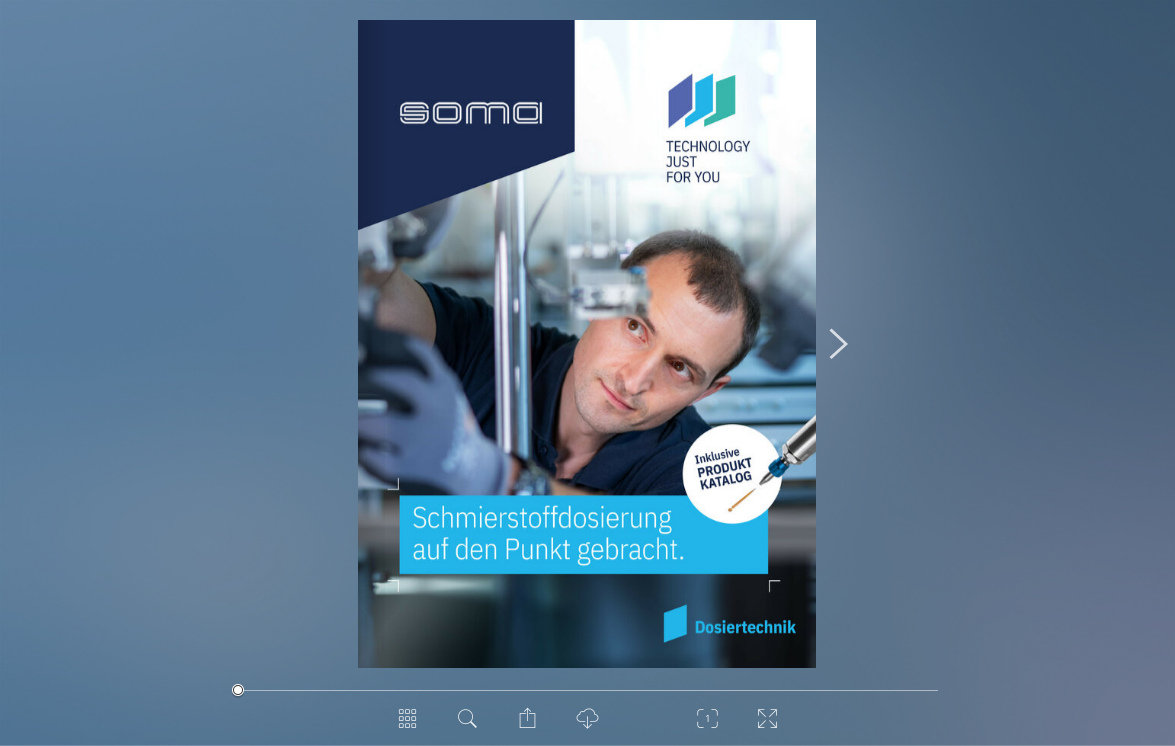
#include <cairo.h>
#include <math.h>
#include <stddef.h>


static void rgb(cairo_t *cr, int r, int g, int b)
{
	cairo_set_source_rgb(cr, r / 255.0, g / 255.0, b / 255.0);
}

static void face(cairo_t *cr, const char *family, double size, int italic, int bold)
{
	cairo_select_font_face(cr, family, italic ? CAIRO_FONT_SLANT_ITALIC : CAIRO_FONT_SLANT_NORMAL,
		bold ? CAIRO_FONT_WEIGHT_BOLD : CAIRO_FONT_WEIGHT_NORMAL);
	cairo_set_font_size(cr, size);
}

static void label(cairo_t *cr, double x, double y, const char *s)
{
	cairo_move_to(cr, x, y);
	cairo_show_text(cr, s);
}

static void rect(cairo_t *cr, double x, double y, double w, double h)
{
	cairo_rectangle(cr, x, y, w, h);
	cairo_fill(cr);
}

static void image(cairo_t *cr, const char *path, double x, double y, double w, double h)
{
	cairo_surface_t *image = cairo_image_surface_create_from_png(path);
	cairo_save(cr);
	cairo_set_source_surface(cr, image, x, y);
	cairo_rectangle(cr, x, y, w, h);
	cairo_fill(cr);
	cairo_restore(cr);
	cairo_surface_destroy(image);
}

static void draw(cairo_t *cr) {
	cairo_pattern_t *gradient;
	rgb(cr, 255, 255, 255);
	cairo_paint(cr);
	image(cr, "image0.png", 0, 0, 1175, 746);
	image(cr, "image3.png", 359, 667, 457, 1);
	image(cr, "image2.png", 358, 667, 458, 1);
	image(cr, "image1.png", 358, 20, 458, 648);
	gradient = cairo_pattern_create_linear(358, 344, 390, 344);
	cairo_pattern_add_color_stop_rgba(gradient, 0, 0, 0, 0, 0.15);
	cairo_pattern_add_color_stop_rgba(gradient, 1, 0, 0, 0, 0);
	cairo_set_source(cr, gradient);
	cairo_pattern_destroy(gradient);
	rect(cr, 358, 20, 27, 648);
	cairo_set_source_rgba(cr, 1, 1, 1, 0.75);
	cairo_new_path(cr);
	cairo_move_to(cr, 829.5, 330.5);
	cairo_line_to(cr, 831.5, 328.5);
	cairo_line_to(cr, 848, 344);
	cairo_line_to(cr, 831.5, 359);
	cairo_line_to(cr, 829.5, 357);
	cairo_line_to(cr, 844, 344);
	cairo_close_path(cr);
	cairo_fill(cr);
	rgb(cr, 73, 97, 119);
	cairo_new_path(cr);
	cairo_move_to(cr, 232, 691);
	cairo_curve_to(cr, 230.5, 700, 245.5, 700, 244, 691);
	cairo_curve_to(cr, 243, 697.5, 233, 697.5, 232, 691);
	cairo_close_path(cr);
	cairo_fill(cr);
	cairo_set_source_rgba(cr, 1, 1, 1, 0.5);
	rect(cr, 238, 690, 700, 1);
	rgb(cr, 51, 51, 51);
	cairo_arc(cr, 238, 690, 5.5, 0, 2 * M_PI);
	cairo_fill_preserve(cr);
	rgb(cr, 255, 255, 255);
	cairo_set_line_width(cr, 1);
	cairo_stroke(cr);
	cairo_arc(cr, 238, 690, 4, 0, 2 * M_PI);
	cairo_fill(cr);
	image(cr, "image4.png", 398, 709, 19, 19);
	image(cr, "image5.png", 458, 709, 19, 19);
	image(cr, "image6.png", 519, 707, 17, 21);
	image(cr, "image7.png", 576, 708, 23, 21);
	image(cr, "image8.png", 697, 709, 21, 19);
	face(cr, "Open Sans", 10, 0, 0);
	rgb(cr, 238, 241, 244);
	label(cr, 705, 722, "1");
	image(cr, "image9.png", 758, 709, 19, 19);
}

int main(void) {
	cairo_surface_t *surface = cairo_image_surface_create(CAIRO_FORMAT_RGB24, 1175, 746);
	cairo_t *cr = cairo_create(surface);
	cairo_font_options_t *options = cairo_font_options_create();
	cairo_font_options_set_hint_metrics(options, CAIRO_HINT_METRICS_OFF);
	cairo_font_options_set_hint_style(options, CAIRO_HINT_STYLE_NONE);
	cairo_set_font_options(cr, options);
	cairo_set_miter_limit(cr, 4);
	draw(cr);
	cairo_surface_write_to_png(surface, "render.png");
	cairo_font_options_destroy(options);
	cairo_destroy(cr);
	cairo_surface_destroy(surface);
	return 0;
}
